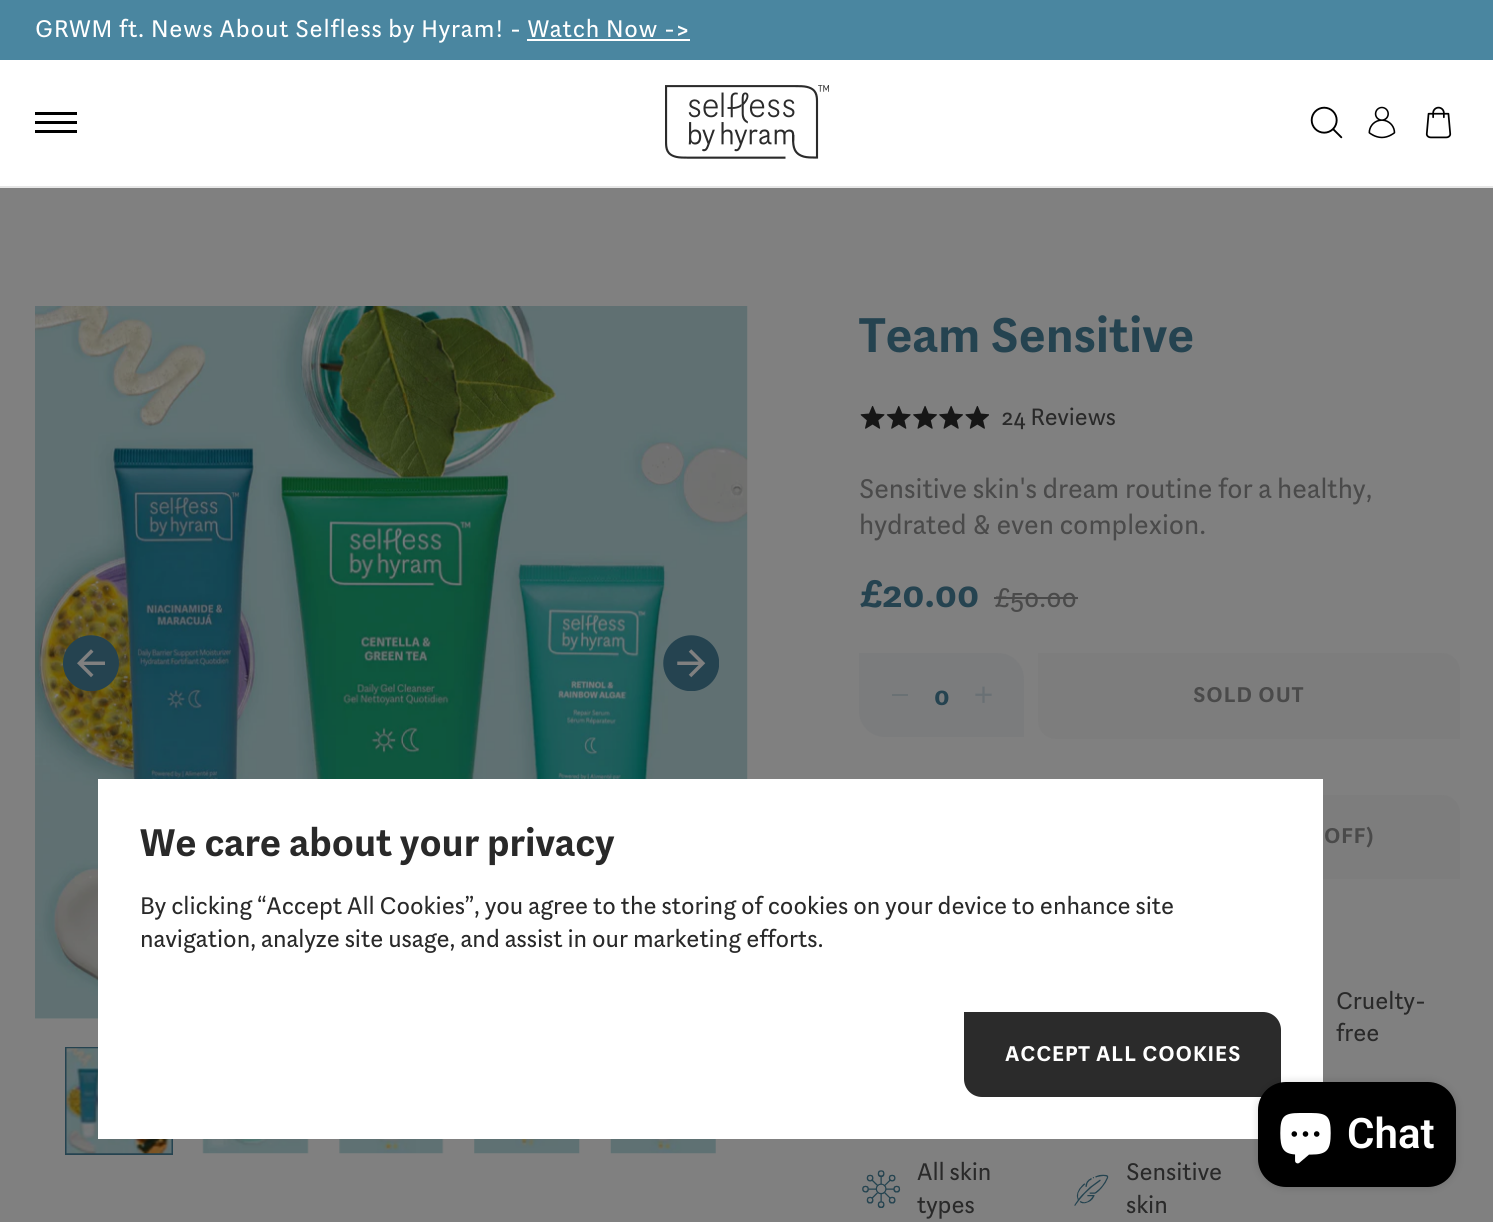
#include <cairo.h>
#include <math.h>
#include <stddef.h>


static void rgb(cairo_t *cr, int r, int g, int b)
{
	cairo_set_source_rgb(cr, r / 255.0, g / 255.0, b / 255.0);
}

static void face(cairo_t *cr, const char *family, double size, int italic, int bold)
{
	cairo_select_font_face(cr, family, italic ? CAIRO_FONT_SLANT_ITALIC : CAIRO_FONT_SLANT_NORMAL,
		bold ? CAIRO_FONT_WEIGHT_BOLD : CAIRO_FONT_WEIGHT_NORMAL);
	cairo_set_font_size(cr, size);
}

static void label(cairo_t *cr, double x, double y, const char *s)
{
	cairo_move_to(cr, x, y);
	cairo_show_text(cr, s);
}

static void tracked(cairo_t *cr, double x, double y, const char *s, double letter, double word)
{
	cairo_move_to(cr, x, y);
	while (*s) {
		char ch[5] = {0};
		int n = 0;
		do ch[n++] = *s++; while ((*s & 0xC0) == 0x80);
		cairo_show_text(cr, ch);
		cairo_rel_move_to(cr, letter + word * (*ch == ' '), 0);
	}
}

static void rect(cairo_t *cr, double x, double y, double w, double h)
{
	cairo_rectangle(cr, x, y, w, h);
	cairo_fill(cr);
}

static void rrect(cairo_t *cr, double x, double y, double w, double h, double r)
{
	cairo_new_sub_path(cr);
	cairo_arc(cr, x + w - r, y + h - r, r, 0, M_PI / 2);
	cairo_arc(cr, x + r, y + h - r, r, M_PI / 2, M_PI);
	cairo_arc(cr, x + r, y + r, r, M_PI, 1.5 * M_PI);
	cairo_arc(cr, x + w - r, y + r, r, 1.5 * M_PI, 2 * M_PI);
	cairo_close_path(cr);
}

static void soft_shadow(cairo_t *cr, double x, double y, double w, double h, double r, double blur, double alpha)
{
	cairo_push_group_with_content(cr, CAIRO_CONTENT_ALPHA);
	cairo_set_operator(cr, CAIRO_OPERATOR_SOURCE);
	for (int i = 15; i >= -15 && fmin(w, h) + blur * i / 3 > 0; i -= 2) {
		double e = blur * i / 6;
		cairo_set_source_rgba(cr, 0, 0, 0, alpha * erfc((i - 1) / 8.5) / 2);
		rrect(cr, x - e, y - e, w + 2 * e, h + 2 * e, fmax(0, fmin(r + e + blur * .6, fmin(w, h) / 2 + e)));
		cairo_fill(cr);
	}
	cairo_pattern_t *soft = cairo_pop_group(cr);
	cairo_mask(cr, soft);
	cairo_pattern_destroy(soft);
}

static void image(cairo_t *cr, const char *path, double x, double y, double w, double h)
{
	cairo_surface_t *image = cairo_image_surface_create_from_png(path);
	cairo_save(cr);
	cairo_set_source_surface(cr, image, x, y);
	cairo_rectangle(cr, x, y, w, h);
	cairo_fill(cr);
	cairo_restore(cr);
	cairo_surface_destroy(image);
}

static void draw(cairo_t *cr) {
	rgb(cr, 128, 128, 128);
	cairo_paint(cr);
	rgb(cr, 74, 134, 160);
	rect(cr, 0, 0, 1493, 60);
	face(cr, "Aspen", 24.9, 0, 0);
	rgb(cr, 255, 255, 255);
	tracked(cr, 35, 37, "GRWM ft. News About Selfless by Hyram! - Watch Now ->", 0.88, 0);
	rect(cr, 527, 39, 163, 2);
	rect(cr, 0, 60, 1493, 126);
	rgb(cr, 230, 230, 230);
	rect(cr, 0, 186, 1493, 2);
	rgb(cr, 0, 0, 0);
	cairo_new_path(cr);
	cairo_move_to(cr, 35, 112);
	cairo_line_to(cr, 77, 112);
	cairo_line_to(cr, 77, 115);
	cairo_line_to(cr, 35, 115);
	cairo_close_path(cr);
	cairo_move_to(cr, 35, 121);
	cairo_line_to(cr, 77, 121);
	cairo_line_to(cr, 77, 124);
	cairo_line_to(cr, 35, 124);
	cairo_close_path(cr);
	cairo_move_to(cr, 35, 130);
	cairo_line_to(cr, 77, 130);
	cairo_line_to(cr, 77, 133);
	cairo_line_to(cr, 35, 133);
	cairo_close_path(cr);
	cairo_fill(cr);
	image(cr, "image0.png", 665, 85, 164, 74);
	image(cr, "image1.png", 1310, 106, 33, 33);
	image(cr, "image2.png", 1368, 106, 28, 33);
	image(cr, "image3.png", 1425, 106, 27, 33);
	image(cr, "image4.png", 35, 306, 713, 713);
	image(cr, "image5.png", 63, 635, 56, 56);
	image(cr, "image6.png", 663, 635, 56, 56);
	cairo_rectangle(cr, 66, 1048, 106, 106);
	rgb(cr, 37, 67, 80);
	cairo_stroke(cr);
	image(cr, "image7.png", 66, 1048, 106, 106);
	image(cr, "image8.png", 202, 1139, 107, 15);
	image(cr, "image9.png", 339, 1139, 105, 15);
	image(cr, "image10.png", 474, 1139, 106, 15);
	image(cr, "image11.png", 610, 1139, 106, 15);
	face(cr, "Aspen", 50.5, 0, 1);
	label(cr, 859, 352, "Team Sensitive");
	image(cr, "image13.png", 860, 406, 129, 23);
	image(cr, "image12.png", 860, 405, 129, 24);
	face(cr, "Aspen", 24.5, 0, 0);
	rgb(cr, 41, 41, 41);
	label(cr, 1002, 425, "24 Reviews");
	face(cr, "Aspen", 28, 0, 0);
	rgb(cr, 74, 74, 74);
	label(cr, 859, 498, "Sensitive skin's dream routine for a healthy,");
	label(cr, 859, 534, "hydrated & even complexion.");
	face(cr, "Aspen", 39.9, 0, 1);
	rgb(cr, 37, 67, 80);
	label(cr, 859, 607, "£20.00");
	face(cr, "Aspen", 28, 0, 0);
	rgb(cr, 74, 74, 74);
	label(cr, 994, 607, "£50.00");
	rect(cr, 994, 597, 84, 2);
	rgb(cr, 123, 124, 125);
	cairo_new_path(cr);
	cairo_move_to(cr, 859, 653);
	cairo_line_to(cr, 998, 653);
	cairo_curve_to(cr, 1012.5, 653, 1024, 664.5, 1024, 679);
	cairo_line_to(cr, 1024, 737);
	cairo_line_to(cr, 885, 737);
	cairo_curve_to(cr, 870.5, 737, 859, 725.5, 859, 711);
	cairo_close_path(cr);
	cairo_fill(cr);
	rgb(cr, 106, 113, 116);
	rect(cr, 892, 694, 16, 2);
	face(cr, "Aspen", 28, 0, 1);
	rgb(cr, 37, 67, 80);
	label(cr, 934, 705, "0");
	image(cr, "image14.png", 975, 686, 17, 17);
	rgb(cr, 125, 125, 125);
	cairo_new_path(cr);
	cairo_move_to(cr, 1038, 653);
	cairo_line_to(cr, 1442, 653);
	cairo_curve_to(cr, 1452, 653, 1460, 661, 1460, 671);
	cairo_line_to(cr, 1460, 739);
	cairo_line_to(cr, 1056, 739);
	cairo_curve_to(cr, 1046, 739, 1038, 731, 1038, 721);
	cairo_close_path(cr);
	cairo_fill(cr);
	face(cr, "Aspen", 22.1, 0, 1);
	rgb(cr, 74, 74, 74);
	tracked(cr, 1193, 702, "SOLD OUT", 0.88, 0);
	rgb(cr, 125, 125, 125);
	cairo_new_path(cr);
	cairo_move_to(cr, 859, 795);
	cairo_line_to(cr, 1442, 795);
	cairo_curve_to(cr, 1452, 795, 1460, 803, 1460, 813);
	cairo_line_to(cr, 1460, 879);
	cairo_line_to(cr, 877, 879);
	cairo_curve_to(cr, 867, 879, 859, 871, 859, 861);
	cairo_close_path(cr);
	cairo_fill(cr);
	rgb(cr, 74, 74, 74);
	tracked(cr, 1324, 843, "OFF)", 0.88, 0);
	face(cr, "Aspen", 24.9, 0, 0);
	rgb(cr, 41, 41, 41);
	label(cr, 1336, 1009, "Cruelty-");
	label(cr, 1336, 1041, "free");
	image(cr, "image15.png", 862, 1170, 39, 38);
	label(cr, 917, 1180, "All skin");
	label(cr, 917, 1213, "types");
	image(cr, "image16.png", 1074, 1174, 35, 32);
	label(cr, 1126, 1180, "Sensitive");
	label(cr, 1126, 1213, "skin");
	rgb(cr, 255, 255, 255);
	rect(cr, 98, 779, 1225, 360);
	face(cr, "Aspen", 39.9, 0, 1);
	rgb(cr, 41, 41, 41);
	label(cr, 140, 856, "We care about your privacy");
	face(cr, "Aspen", 24.9, 0, 0);
	label(cr, 140, 914, "By clicking “Accept All Cookies”, you agree to the storing of cookies on your device to enhance site");
	label(cr, 140, 947, "navigation, analyze site usage, and assist in our marketing efforts.");
	rgb(cr, 43, 43, 43);
	cairo_new_path(cr);
	cairo_move_to(cr, 964, 1012);
	cairo_line_to(cr, 1263, 1012);
	cairo_curve_to(cr, 1273, 1012, 1281, 1020, 1281, 1030);
	cairo_line_to(cr, 1281, 1097);
	cairo_line_to(cr, 982, 1097);
	cairo_curve_to(cr, 972, 1097, 964, 1089, 964, 1079);
	cairo_close_path(cr);
	cairo_fill(cr);
	face(cr, "Aspen", 22.1, 0, 1);
	rgb(cr, 255, 255, 255);
	tracked(cr, 1005, 1061, "ACCEPT ALL COOKIES", 0.88, 0);
	rgb(cr, 0, 0, 0);
	soft_shadow(cr, 1258, 1082, 198, 105, 28, 4.5, 0.15);
	rgb(cr, 0, 0, 0);
	rrect(cr, 1258, 1082, 198, 105, 28);
	cairo_fill(cr);
	image(cr, "image17.png", 1280, 1113, 51, 51);
	face(cr, "Roboto SemiBold", 42, 0, 0);
	rgb(cr, 255, 255, 255);
	label(cr, 1347, 1148, "Chat");
}

int main(void) {
	cairo_surface_t *surface = cairo_image_surface_create(CAIRO_FORMAT_RGB24, 1493, 1222);
	cairo_t *cr = cairo_create(surface);
	cairo_font_options_t *options = cairo_font_options_create();
	cairo_font_options_set_hint_metrics(options, CAIRO_HINT_METRICS_OFF);
	cairo_font_options_set_hint_style(options, CAIRO_HINT_STYLE_NONE);
	cairo_set_font_options(cr, options);
	cairo_set_miter_limit(cr, 4);
	draw(cr);
	cairo_surface_write_to_png(surface, "render.png");
	cairo_font_options_destroy(options);
	cairo_destroy(cr);
	cairo_surface_destroy(surface);
	return 0;
}
